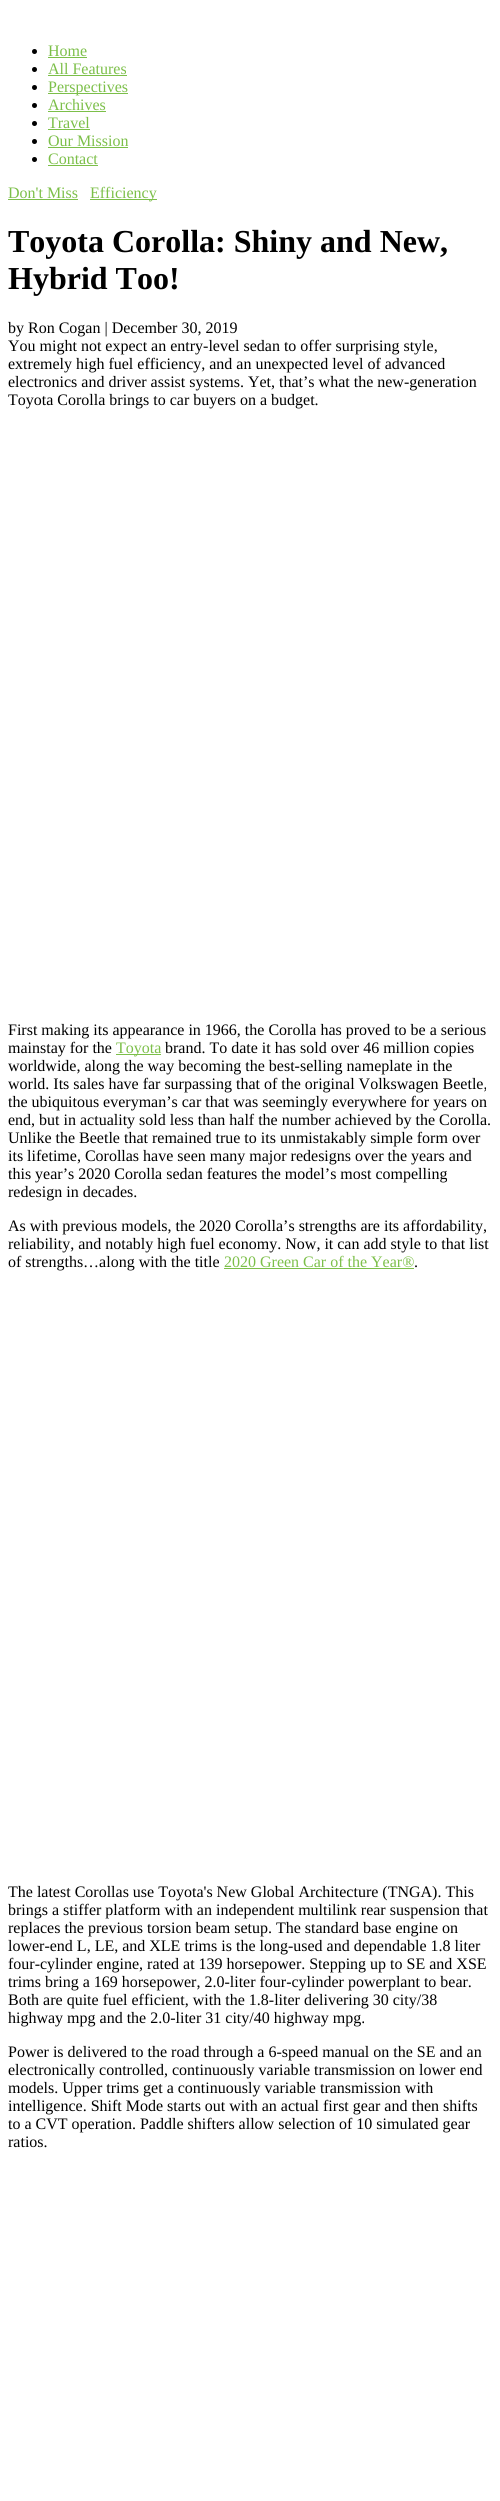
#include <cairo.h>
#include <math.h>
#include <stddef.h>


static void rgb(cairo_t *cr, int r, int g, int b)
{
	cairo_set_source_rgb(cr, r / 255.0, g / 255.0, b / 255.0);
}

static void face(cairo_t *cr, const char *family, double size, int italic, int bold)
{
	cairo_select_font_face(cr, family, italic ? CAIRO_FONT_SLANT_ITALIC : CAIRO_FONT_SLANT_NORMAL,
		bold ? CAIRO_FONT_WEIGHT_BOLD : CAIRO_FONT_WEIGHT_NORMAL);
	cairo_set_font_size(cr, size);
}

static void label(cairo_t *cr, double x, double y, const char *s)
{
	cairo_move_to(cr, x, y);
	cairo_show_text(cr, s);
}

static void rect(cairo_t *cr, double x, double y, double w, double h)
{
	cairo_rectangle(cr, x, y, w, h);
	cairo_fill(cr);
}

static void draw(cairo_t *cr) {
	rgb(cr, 255, 255, 255);
	cairo_paint(cr);
	rgb(cr, 0, 0, 0);
	cairo_arc(cr, 34.5, 51.5, 2.5, 0, 2 * M_PI);
	cairo_fill(cr);
	face(cr, "Liberation Serif", 16, 0, 0);
	rgb(cr, 124, 191, 73);
	label(cr, 48, 56, "Home");
	rect(cr, 48, 57, 39, 1);
	rgb(cr, 0, 0, 0);
	cairo_new_path(cr);
	cairo_arc(cr, 34.5, 69.5, 2.5, 0, 2 * M_PI);
	cairo_fill(cr);
	rgb(cr, 124, 191, 73);
	label(cr, 48, 74, "All Features");
	rect(cr, 48, 75, 79, 1);
	rgb(cr, 0, 0, 0);
	cairo_new_path(cr);
	cairo_arc(cr, 34.5, 87.5, 2.5, 0, 2 * M_PI);
	cairo_fill(cr);
	rgb(cr, 124, 191, 73);
	rect(cr, 48, 93, 80, 1);
	label(cr, 48, 92, "Perspectives");
	rgb(cr, 0, 0, 0);
	cairo_new_path(cr);
	cairo_arc(cr, 34.5, 105.5, 2.5, 0, 2 * M_PI);
	cairo_fill(cr);
	rgb(cr, 124, 191, 73);
	label(cr, 48, 110, "Archives");
	rect(cr, 48, 111, 58, 1);
	rgb(cr, 0, 0, 0);
	cairo_new_path(cr);
	cairo_arc(cr, 34.5, 123.5, 2.5, 0, 2 * M_PI);
	cairo_fill(cr);
	rgb(cr, 124, 191, 73);
	label(cr, 48, 128, "Travel");
	rect(cr, 48, 129, 42, 1);
	rgb(cr, 0, 0, 0);
	cairo_new_path(cr);
	cairo_arc(cr, 34.5, 141.5, 2.5, 0, 2 * M_PI);
	cairo_fill(cr);
	rgb(cr, 124, 191, 73);
	label(cr, 48, 146, "Our Mission");
	rect(cr, 48, 147, 80, 1);
	rgb(cr, 0, 0, 0);
	cairo_new_path(cr);
	cairo_arc(cr, 34.5, 159.5, 2.5, 0, 2 * M_PI);
	cairo_fill(cr);
	rgb(cr, 124, 191, 73);
	label(cr, 48, 164, "Contact");
	rect(cr, 48, 165, 50, 1);
	label(cr, 8, 198, "Don't Miss");
	rect(cr, 8, 199, 70, 1);
	rect(cr, 90, 199, 67, 1);
	label(cr, 90, 198, "Efficiency");
	face(cr, "Liberation Serif", 32, 0, 1);
	rgb(cr, 0, 0, 0);
	label(cr, 8, 252, "Toyota Corolla: Shiny and New,");
	label(cr, 8, 289, "Hybrid Too!");
	face(cr, "Liberation Serif", 16, 0, 0);
	label(cr, 8, 333, "by Ron Cogan | December 30, 2019");
	label(cr, 8, 351, "You might not expect an entry-level sedan to offer surprising style,");
	label(cr, 8, 369, "extremely high fuel efficiency, and an unexpected level of advanced");
	label(cr, 8, 387, "electronics and driver assist systems. Yet, that’s what the new-generation");
	label(cr, 8, 405, "Toyota Corolla brings to car buyers on a budget.");
	label(cr, 8, 1035, "First making its appearance in 1966, the Corolla has proved to be a serious");
	label(cr, 8, 1053, "mainstay for the");
	rgb(cr, 124, 191, 73);
	rect(cr, 116, 1054, 45, 1);
	label(cr, 116, 1053, "Toyota");
	rgb(cr, 0, 0, 0);
	label(cr, 165, 1053, "brand. To date it has sold over 46 million copies");
	label(cr, 8, 1071, "worldwide, along the way becoming the best-selling nameplate in the");
	label(cr, 8, 1089, "world. Its sales have far surpassing that of the original Volkswagen Beetle,");
	label(cr, 8, 1107, "the ubiquitous everyman’s car that was seemingly everywhere for years on");
	label(cr, 8, 1125, "end, but in actuality sold less than half the number achieved by the Corolla.");
	label(cr, 8, 1143, "Unlike the Beetle that remained true to its unmistakably simple form over");
	label(cr, 8, 1161, "its lifetime, Corollas have seen many major redesigns over the years and");
	label(cr, 8, 1179, "this year’s 2020 Corolla sedan features the model’s most compelling");
	label(cr, 8, 1197, "redesign in decades.");
	label(cr, 8, 1231, "As with previous models, the 2020 Corolla’s strengths are its affordability,");
	label(cr, 8, 1249, "reliability, and notably high fuel economy. Now, it can add style to that list");
	label(cr, 8, 1267, "of strengths…along with the title");
	rgb(cr, 124, 191, 73);
	label(cr, 224, 1267, "2020 Green Car of the Year®");
	rect(cr, 224, 1268, 190, 1);
	rgb(cr, 0, 0, 0);
	label(cr, 414, 1267, ".");
	label(cr, 8, 1897, "The latest Corollas use Toyota's New Global Architecture (TNGA). This");
	label(cr, 8, 1915, "brings a stiffer platform with an independent multilink rear suspension that");
	label(cr, 8, 1933, "replaces the previous torsion beam setup. The standard base engine on");
	label(cr, 8, 1951, "lower-end L, LE, and XLE trims is the long-used and dependable 1.8 liter");
	label(cr, 8, 1969, "four-cylinder engine, rated at 139 horsepower. Stepping up to SE and XSE");
	label(cr, 8, 1987, "trims bring a 169 horsepower, 2.0-liter four-cylinder powerplant to bear.");
	label(cr, 8, 2005, "Both are quite fuel efficient, with the 1.8-liter delivering 30 city/38");
	label(cr, 8, 2023, "highway mpg and the 2.0-liter 31 city/40 highway mpg.");
	label(cr, 8, 2057, "Power is delivered to the road through a 6-speed manual on the SE and an");
	label(cr, 8, 2075, "electronically controlled, continuously variable transmission on lower end");
	label(cr, 8, 2093, "models. Upper trims get a continuously variable transmission with");
	label(cr, 8, 2111, "intelligence. Shift Mode starts out with an actual first gear and then shifts");
	label(cr, 8, 2129, "to a CVT operation. Paddle shifters allow selection of 10 simulated gear");
	label(cr, 8, 2147, "ratios.");
}

int main(void) {
	cairo_surface_t *surface = cairo_image_surface_create(CAIRO_FORMAT_RGB24, 500, 2501);
	cairo_t *cr = cairo_create(surface);
	cairo_font_options_t *options = cairo_font_options_create();
	cairo_font_options_set_hint_metrics(options, CAIRO_HINT_METRICS_OFF);
	cairo_font_options_set_hint_style(options, CAIRO_HINT_STYLE_NONE);
	cairo_set_font_options(cr, options);
	cairo_set_miter_limit(cr, 4);
	draw(cr);
	cairo_surface_write_to_png(surface, "render.png");
	cairo_font_options_destroy(options);
	cairo_destroy(cr);
	cairo_surface_destroy(surface);
	return 0;
}
